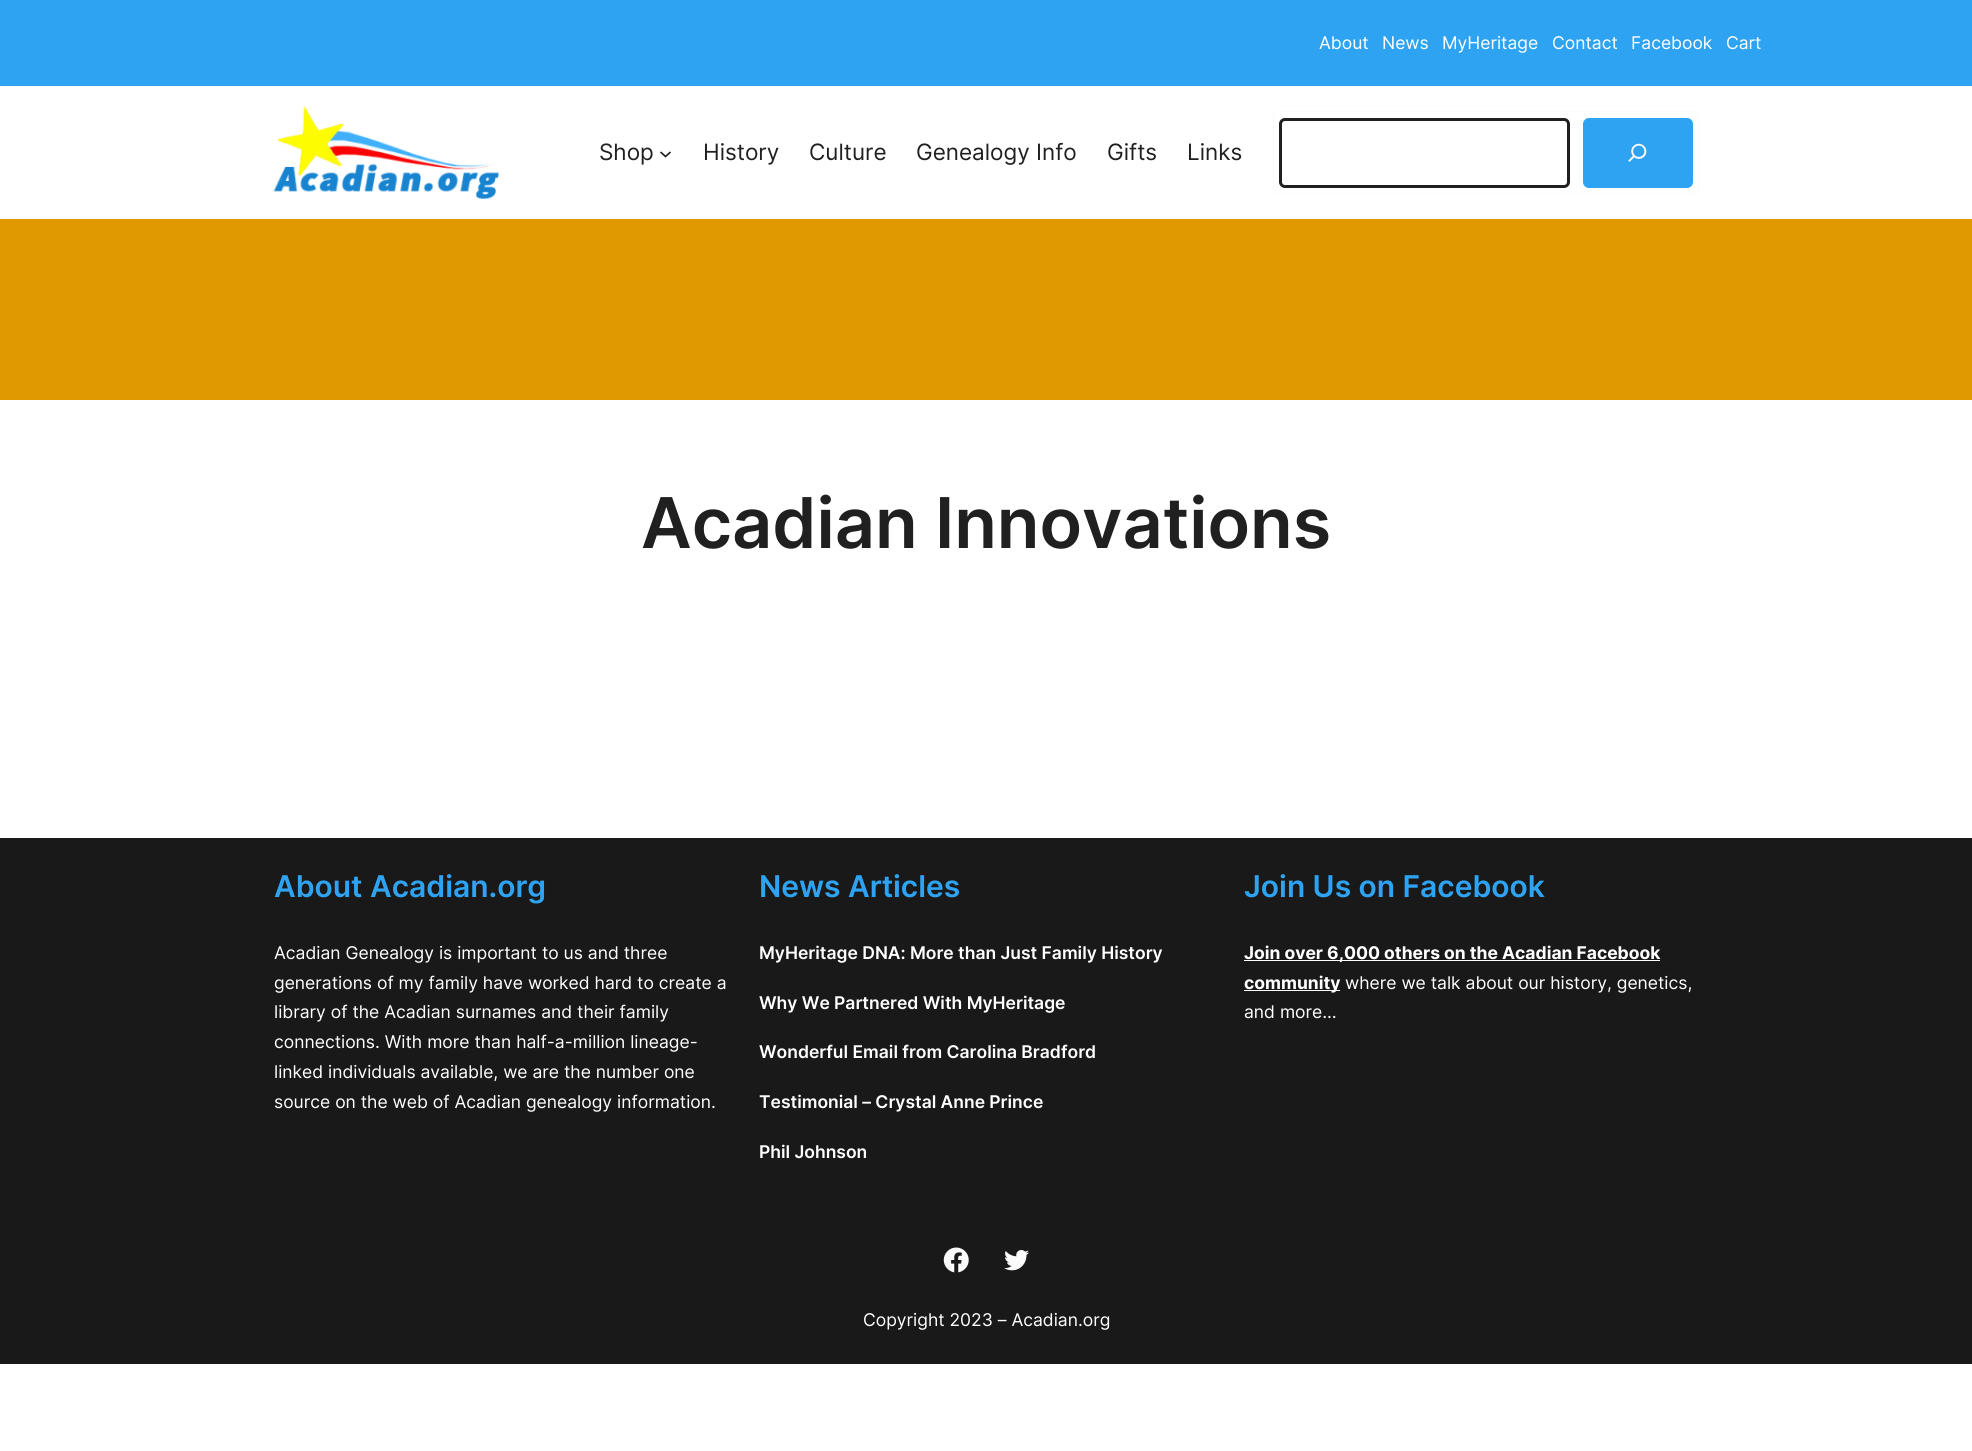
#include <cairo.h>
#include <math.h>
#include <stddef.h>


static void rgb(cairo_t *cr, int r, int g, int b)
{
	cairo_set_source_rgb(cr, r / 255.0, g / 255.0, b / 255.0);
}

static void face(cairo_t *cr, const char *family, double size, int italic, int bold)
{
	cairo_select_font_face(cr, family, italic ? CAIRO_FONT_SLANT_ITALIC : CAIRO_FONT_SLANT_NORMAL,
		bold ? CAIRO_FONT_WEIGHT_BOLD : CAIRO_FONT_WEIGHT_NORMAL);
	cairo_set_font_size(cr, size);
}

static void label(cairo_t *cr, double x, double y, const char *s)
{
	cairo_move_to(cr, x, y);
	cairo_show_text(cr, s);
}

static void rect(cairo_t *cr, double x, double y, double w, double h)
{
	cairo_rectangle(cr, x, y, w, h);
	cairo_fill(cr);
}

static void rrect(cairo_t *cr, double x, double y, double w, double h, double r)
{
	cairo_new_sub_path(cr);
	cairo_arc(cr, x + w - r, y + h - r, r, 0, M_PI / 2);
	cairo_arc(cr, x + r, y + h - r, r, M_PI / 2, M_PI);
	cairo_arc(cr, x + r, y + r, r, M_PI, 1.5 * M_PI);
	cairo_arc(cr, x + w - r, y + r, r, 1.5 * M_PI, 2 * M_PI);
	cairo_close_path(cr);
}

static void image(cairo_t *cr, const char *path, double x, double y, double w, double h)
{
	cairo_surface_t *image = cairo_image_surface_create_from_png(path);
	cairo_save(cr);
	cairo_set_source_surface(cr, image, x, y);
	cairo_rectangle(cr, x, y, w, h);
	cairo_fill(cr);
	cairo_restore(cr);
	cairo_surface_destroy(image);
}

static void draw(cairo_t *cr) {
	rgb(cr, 255, 255, 255);
	cairo_paint(cr);
	rgb(cr, 46, 163, 242);
	rect(cr, 0, 0, 1972, 86);
	face(cr, "Inter", 17.5, 0, 0);
	rgb(cr, 255, 255, 255);
	label(cr, 1319, 49, "About");
	label(cr, 1382, 49, "News");
	label(cr, 1442, 49, "MyHeritage");
	label(cr, 1552, 49, "Contact");
	label(cr, 1631, 49, "Facebook");
	label(cr, 1726, 49, "Cart");
	image(cr, "image0.png", 273, 106, 226, 93);
	face(cr, "Inter", 22.5, 0, 0);
	rgb(cr, 32, 32, 32);
	label(cr, 599, 160, "Shop");
	cairo_new_path(cr);
	cairo_move_to(cr, 660.5, 152);
	cairo_line_to(cr, 665.5, 156.5);
	cairo_line_to(cr, 670.5, 152);
	cairo_set_line_width(cr, 1.7);
	cairo_stroke(cr);
	label(cr, 703, 160, "History");
	label(cr, 809, 160, "Culture");
	label(cr, 916, 160, "Genealogy Info");
	label(cr, 1107, 160, "Gifts");
	label(cr, 1187, 160, "Links");
	rrect(cr, 1273.5, 111.5, 425, 82, 5.5);
	rgb(cr, 251, 251, 251);
	cairo_set_line_width(cr, 1);
	cairo_stroke(cr);
	rrect(cr, 1280.5, 119.5, 288, 67, 4.5);
	rgb(cr, 32, 32, 32);
	cairo_set_line_width(cr, 3);
	cairo_stroke(cr);
	rgb(cr, 46, 163, 242);
	rrect(cr, 1583, 118, 110, 70, 6);
	cairo_fill(cr);
	image(cr, "image1.png", 1628, 143, 19, 19);
	rgb(cr, 224, 153, 0);
	rect(cr, 0, 219, 1972, 181);
	face(cr, "Inter SemiBold", 70, 0, 0);
	rgb(cr, 32, 32, 32);
	label(cr, 641, 548, "Acadian Innovations");
	rgb(cr, 26, 25, 25);
	rect(cr, 0, 838, 1972, 526);
	face(cr, "Inter SemiBold", 30, 0, 0);
	rgb(cr, 46, 163, 242);
	label(cr, 274, 897, "About Acadian.org");
	face(cr, "Inter", 17.5, 0, 0);
	rgb(cr, 255, 255, 255);
	label(cr, 274, 959, "Acadian Genealogy is important to us and three");
	label(cr, 274, 989, "generations of my family have worked hard to create a");
	label(cr, 274, 1018, "library of the Acadian surnames and their family");
	label(cr, 274, 1048, "connections. With more than half-a-million lineage-");
	label(cr, 274, 1078, "linked individuals available, we are the number one");
	label(cr, 274, 1108, "source on the web of Acadian genealogy information.");
	face(cr, "Inter SemiBold", 30, 0, 0);
	rgb(cr, 46, 163, 242);
	label(cr, 759, 897, "News Articles");
	face(cr, "Inter SemiBold", 17.5, 0, 0);
	rgb(cr, 255, 255, 255);
	label(cr, 759, 959, "MyHeritage DNA: More than Just Family History");
	label(cr, 759, 1009, "Why We Partnered With MyHeritage");
	label(cr, 759, 1058, "Wonderful Email from Carolina Bradford");
	label(cr, 759, 1108, "Testimonial – Crystal Anne Prince");
	label(cr, 759, 1158, "Phil Johnson");
	face(cr, "Inter SemiBold", 30, 0, 0);
	rgb(cr, 46, 163, 242);
	label(cr, 1244, 897, "Join Us on Facebook");
	rgb(cr, 255, 255, 255);
	rect(cr, 1244, 960, 416, 1);
	face(cr, "Inter", 17.5, 0, 1);
	label(cr, 1244, 959, "Join over 6,000 others on the Acadian Facebook");
	rect(cr, 1244, 990, 96, 1);
	label(cr, 1244, 989, "community");
	face(cr, "Inter", 17.5, 0, 0);
	label(cr, 1345, 989, "where we talk about our history, genetics,");
	label(cr, 1244, 1018, "and more…");
	image(cr, "image2.png", 943, 1247, 26, 26);
	image(cr, "image3.png", 1004, 1250, 25, 21);
	label(cr, 863, 1326, "Copyright 2023 – Acadian.org");
}

int main(void) {
	cairo_surface_t *surface = cairo_image_surface_create(CAIRO_FORMAT_RGB24, 1972, 1451);
	cairo_t *cr = cairo_create(surface);
	cairo_font_options_t *options = cairo_font_options_create();
	cairo_font_options_set_hint_metrics(options, CAIRO_HINT_METRICS_OFF);
	cairo_font_options_set_hint_style(options, CAIRO_HINT_STYLE_NONE);
	cairo_set_font_options(cr, options);
	cairo_set_miter_limit(cr, 4);
	draw(cr);
	cairo_surface_write_to_png(surface, "render.png");
	cairo_font_options_destroy(options);
	cairo_destroy(cr);
	cairo_surface_destroy(surface);
	return 0;
}
